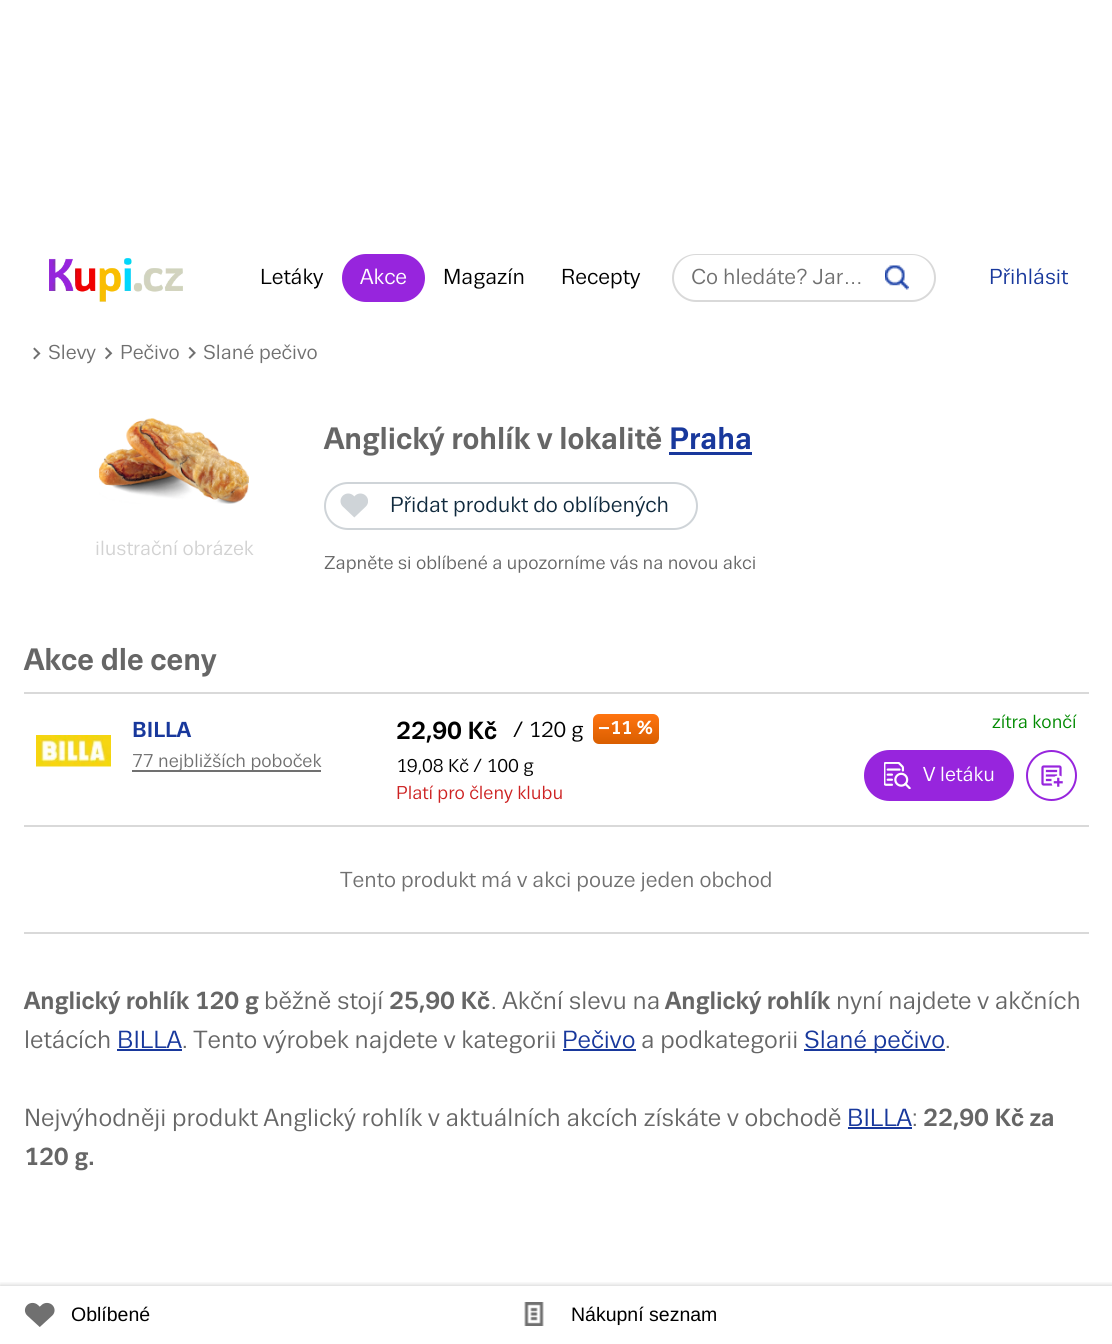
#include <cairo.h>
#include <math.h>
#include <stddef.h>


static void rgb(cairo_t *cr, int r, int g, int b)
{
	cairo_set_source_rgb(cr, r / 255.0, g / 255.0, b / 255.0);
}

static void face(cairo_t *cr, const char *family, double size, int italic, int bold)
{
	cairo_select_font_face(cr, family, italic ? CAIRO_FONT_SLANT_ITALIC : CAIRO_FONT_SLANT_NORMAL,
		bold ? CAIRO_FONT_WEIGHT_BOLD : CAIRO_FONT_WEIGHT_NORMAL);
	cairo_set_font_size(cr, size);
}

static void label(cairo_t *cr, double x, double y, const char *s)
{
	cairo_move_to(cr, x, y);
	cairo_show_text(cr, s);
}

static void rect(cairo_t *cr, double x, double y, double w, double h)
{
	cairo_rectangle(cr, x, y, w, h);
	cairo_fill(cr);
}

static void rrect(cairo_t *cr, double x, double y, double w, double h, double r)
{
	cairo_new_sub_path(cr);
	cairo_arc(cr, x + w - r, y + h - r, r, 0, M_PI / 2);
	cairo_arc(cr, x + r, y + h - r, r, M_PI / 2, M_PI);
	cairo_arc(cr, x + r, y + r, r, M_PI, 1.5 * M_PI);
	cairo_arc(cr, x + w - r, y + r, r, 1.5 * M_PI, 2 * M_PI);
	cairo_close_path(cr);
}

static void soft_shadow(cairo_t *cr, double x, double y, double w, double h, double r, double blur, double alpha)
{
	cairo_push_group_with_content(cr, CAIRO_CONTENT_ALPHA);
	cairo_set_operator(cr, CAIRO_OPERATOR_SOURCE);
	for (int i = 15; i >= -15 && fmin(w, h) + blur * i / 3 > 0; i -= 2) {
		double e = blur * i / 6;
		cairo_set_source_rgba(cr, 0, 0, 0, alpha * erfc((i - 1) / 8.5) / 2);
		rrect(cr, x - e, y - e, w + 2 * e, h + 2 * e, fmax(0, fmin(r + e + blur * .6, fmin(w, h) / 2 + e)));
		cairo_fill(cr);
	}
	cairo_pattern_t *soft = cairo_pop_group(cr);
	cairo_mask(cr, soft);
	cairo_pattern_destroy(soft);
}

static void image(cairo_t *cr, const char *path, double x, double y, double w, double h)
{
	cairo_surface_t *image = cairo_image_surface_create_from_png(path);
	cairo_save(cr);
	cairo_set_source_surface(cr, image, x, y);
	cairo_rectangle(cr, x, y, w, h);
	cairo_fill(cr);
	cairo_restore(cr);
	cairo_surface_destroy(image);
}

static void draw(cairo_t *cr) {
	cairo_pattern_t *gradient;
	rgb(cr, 255, 255, 255);
	cairo_paint(cr);
	image(cr, "image0.png", 49, 258, 134, 44);
	face(cr, "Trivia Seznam", 21, 0, 0);
	rgb(cr, 0, 0, 0);
	label(cr, 260, 284, "Letáky");
	rgb(cr, 151, 37, 221);
	rrect(cr, 342, 254, 83, 48, 24);
	cairo_fill(cr);
	rgb(cr, 255, 255, 255);
	label(cr, 360, 284, "Akce");
	rgb(cr, 0, 0, 0);
	label(cr, 443, 284, "Magazín");
	label(cr, 561, 284, "Recepty");
	rgb(cr, 217, 217, 217);
	cairo_set_fill_rule(cr, CAIRO_FILL_RULE_EVEN_ODD);
	cairo_new_path(cr);
	cairo_move_to(cr, 696, 254);
	cairo_line_to(cr, 864, 254);
	cairo_line_to(cr, 864, 302);
	cairo_line_to(cr, 696, 302);
	cairo_curve_to(cr, 683, 302, 672, 291, 672, 278);
	cairo_curve_to(cr, 672, 264, 683, 254, 696, 254);
	cairo_close_path(cr);
	cairo_move_to(cr, 696, 255);
	cairo_line_to(cr, 864, 255);
	cairo_line_to(cr, 864, 300);
	cairo_line_to(cr, 696, 300);
	cairo_curve_to(cr, 684, 300, 674, 290, 674, 278);
	cairo_curve_to(cr, 674, 265, 684, 255, 696, 255);
	cairo_close_path(cr);
	cairo_fill(cr);
	rgb(cr, 112, 112, 112);
	label(cr, 691, 284, "Co hledáte? Jar…");
	rgb(cr, 217, 217, 217);
	cairo_new_path(cr);
	cairo_move_to(cr, 864, 254);
	cairo_line_to(cr, 912, 254);
	cairo_curve_to(cr, 925, 254, 936, 264, 936, 278);
	cairo_curve_to(cr, 936, 291, 925, 302, 912, 302);
	cairo_line_to(cr, 864, 302);
	cairo_close_path(cr);
	cairo_move_to(cr, 864, 255);
	cairo_line_to(cr, 912, 255);
	cairo_curve_to(cr, 924, 255, 934, 265, 934, 278);
	cairo_curve_to(cr, 934, 290, 924, 300, 912, 300);
	cairo_line_to(cr, 864, 300);
	cairo_close_path(cr);
	cairo_fill(cr);
	image(cr, "image1.png", 885, 265, 24, 25);
	rgb(cr, 24, 56, 156);
	label(cr, 989, 284, "Přihlásit");
	image(cr, "image2.png", 33, 347, 8, 13);
	face(cr, "Trivia Seznam", 19.5, 0, 0);
	rgb(cr, 112, 112, 112);
	label(cr, 48, 359, "Slevy");
	image(cr, "image3.png", 105, 347, 8, 13);
	label(cr, 120, 359, "Pečivo");
	image(cr, "image4.png", 188, 347, 8, 12);
	label(cr, 203, 359, "Slané pečivo");
	image(cr, "image5.png", 99, 418, 150, 86);
	rgb(cr, 210, 210, 210);
	label(cr, 95, 555, "ilustrační obrázek");
	face(cr, "Trivia Seznam", 30, 0, 1);
	rgb(cr, 102, 102, 102);
	label(cr, 324, 449, "Anglický rohlík v lokalitě");
	rgb(cr, 24, 56, 156);
	label(cr, 669, 449, "Praha");
	rect(cr, 669, 452, 83, 3);
	rrect(cr, 325, 483, 372, 46, 23);
	rgb(cr, 207, 212, 216);
	cairo_stroke(cr);
	image(cr, "image6.png", 340, 493, 28, 25);
	face(cr, "Trivia Seznam", 21, 0, 0);
	rgb(cr, 16, 42, 62);
	label(cr, 390, 512, "Přidat produkt do oblíbených");
	face(cr, "Trivia Seznam", 18, 0, 0);
	rgb(cr, 102, 102, 102);
	label(cr, 324, 569, "Zapněte si oblíbené a upozorníme vás na novou akci");
	face(cr, "Trivia Seznam", 30, 0, 1);
	label(cr, 24, 670, "Akce dle ceny");
	rgb(cr, 217, 217, 217);
	rect(cr, 24, 825, 1065, 2);
	rect(cr, 24, 692, 1065, 2);
	image(cr, "image7.png", 36, 735, 75, 32);
	face(cr, "Trivia Seznam", 21, 0, 1);
	rgb(cr, 24, 56, 156);
	label(cr, 132, 737, "BILLA");
	rgb(cr, 112, 112, 112);
	rect(cr, 132, 770, 189, 2);
	face(cr, "Trivia Seznam", 18, 0, 0);
	label(cr, 132, 767, "77 nejbližších poboček");
	face(cr, "Trivia Seznam", 24, 0, 1);
	rgb(cr, 0, 0, 0);
	label(cr, 396, 739, "22,90 Kč");
	face(cr, "Trivia Seznam", 21, 0, 0);
	label(cr, 513, 737, "/ 120 g");
	gradient = cairo_pattern_create_linear(626, 714, 626, 744);
	cairo_pattern_add_color_stop_rgba(gradient, 0, 1, 0.455, 0.063, 1);
	cairo_pattern_add_color_stop_rgba(gradient, 1, 0.851, 0.369, 0, 1);
	cairo_set_source(cr, gradient);
	cairo_pattern_destroy(gradient);
	rrect(cr, 593, 714, 66, 30, 6);
	cairo_fill(cr);
	face(cr, "Trivia Seznam", 18, 0, 1);
	rgb(cr, 255, 255, 255);
	label(cr, 598, 734, "–11 %");
	face(cr, "Trivia Seznam", 18, 0, 0);
	rgb(cr, 0, 0, 0);
	label(cr, 396, 772, "19,08 Kč / 100 g");
	rgb(cr, 205, 33, 33);
	label(cr, 396, 799, "Platí pro členy klubu");
	rgb(cr, 0, 138, 0);
	label(cr, 992, 728, "zítra končí");
	rgb(cr, 151, 37, 221);
	rrect(cr, 865, 751, 148, 49, 24.5);
	cairo_fill_preserve(cr);
	cairo_stroke(cr);
	image(cr, "image8.png", 884, 762, 27, 27);
	face(cr, "Trivia Seznam", 19.5, 0, 0);
	rgb(cr, 255, 255, 255);
	label(cr, 923, 781, "V letáku");
	cairo_new_path(cr);
	cairo_arc(cr, 1051.5, 775.5, 24.5, 0, 2 * M_PI);
	rgb(cr, 151, 37, 221);
	cairo_stroke(cr);
	image(cr, "image9.png", 1041, 765, 22, 22);
	rgb(cr, 217, 217, 217);
	rect(cr, 24, 932, 1065, 2);
	face(cr, "Trivia Seznam", 21, 0, 0);
	rgb(cr, 112, 112, 112);
	label(cr, 340, 887, "Tento produkt má v akci pouze jeden obchod");
	face(cr, "Trivia Seznam", 24, 0, 1);
	rgb(cr, 102, 102, 102);
	label(cr, 24, 1009, "Anglický rohlík 120 g");
	face(cr, "Trivia Seznam", 24, 0, 0);
	label(cr, 264, 1009, "běžně stojí");
	face(cr, "Trivia Seznam", 24, 0, 1);
	label(cr, 389, 1009, "25,90 Kč");
	face(cr, "Trivia Seznam", 24, 0, 0);
	label(cr, 491, 1009, ". Akční slevu na");
	face(cr, "Trivia Seznam", 24, 0, 1);
	label(cr, 665, 1009, "Anglický rohlík");
	face(cr, "Trivia Seznam", 24, 0, 0);
	label(cr, 836, 1009, "nyní najdete v akčních");
	label(cr, 24, 1048, "letácích");
	rgb(cr, 24, 56, 156);
	label(cr, 117, 1048, "BILLA");
	rect(cr, 117, 1049, 65, 2);
	rgb(cr, 102, 102, 102);
	label(cr, 182, 1048, ". Tento výrobek najdete v kategorii");
	rgb(cr, 24, 56, 156);
	label(cr, 562, 1048, "Pečivo");
	rect(cr, 563, 1049, 73, 2);
	rgb(cr, 102, 102, 102);
	label(cr, 641, 1048, "a podkategorii");
	rgb(cr, 24, 56, 156);
	rect(cr, 804, 1049, 141, 2);
	label(cr, 804, 1048, "Slané pečivo");
	rgb(cr, 102, 102, 102);
	label(cr, 945, 1048, ".");
	label(cr, 24, 1126, "Nejvýhodněji produkt Anglický rohlík v aktuálních akcích získáte v obchodě");
	rgb(cr, 24, 56, 156);
	label(cr, 847, 1126, "BILLA");
	rect(cr, 848, 1127, 64, 2);
	rgb(cr, 102, 102, 102);
	label(cr, 912, 1126, ":");
	face(cr, "Trivia Seznam", 24, 0, 1);
	label(cr, 923, 1126, "22,90 Kč za");
	label(cr, 24, 1165, "120 g.");
	cairo_save(cr);
	cairo_set_fill_rule(cr, CAIRO_FILL_RULE_WINDING);
	cairo_rectangle(cr, 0, 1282, 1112, 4);
	cairo_clip(cr);
	rgb(cr, 0, 0, 0);
	soft_shadow(cr, 0, 1286, 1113, 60, 0, 3, 0.24);
	cairo_restore(cr);
	image(cr, "image10.png", 24, 1302, 31, 25);
	face(cr, "Liberation Sans", 19.5, 0, 0);
	rgb(cr, 0, 0, 0);
	label(cr, 71, 1321, "Oblíbené");
	image(cr, "image11.png", 524, 1302, 20, 24);
	label(cr, 571, 1321, "Nákupní seznam");
}

int main(void) {
	cairo_surface_t *surface = cairo_image_surface_create(CAIRO_FORMAT_RGB24, 1112, 1344);
	cairo_t *cr = cairo_create(surface);
	cairo_font_options_t *options = cairo_font_options_create();
	cairo_font_options_set_hint_metrics(options, CAIRO_HINT_METRICS_OFF);
	cairo_font_options_set_hint_style(options, CAIRO_HINT_STYLE_NONE);
	cairo_set_font_options(cr, options);
	cairo_set_miter_limit(cr, 4);
	draw(cr);
	cairo_surface_write_to_png(surface, "render.png");
	cairo_font_options_destroy(options);
	cairo_destroy(cr);
	cairo_surface_destroy(surface);
	return 0;
}
